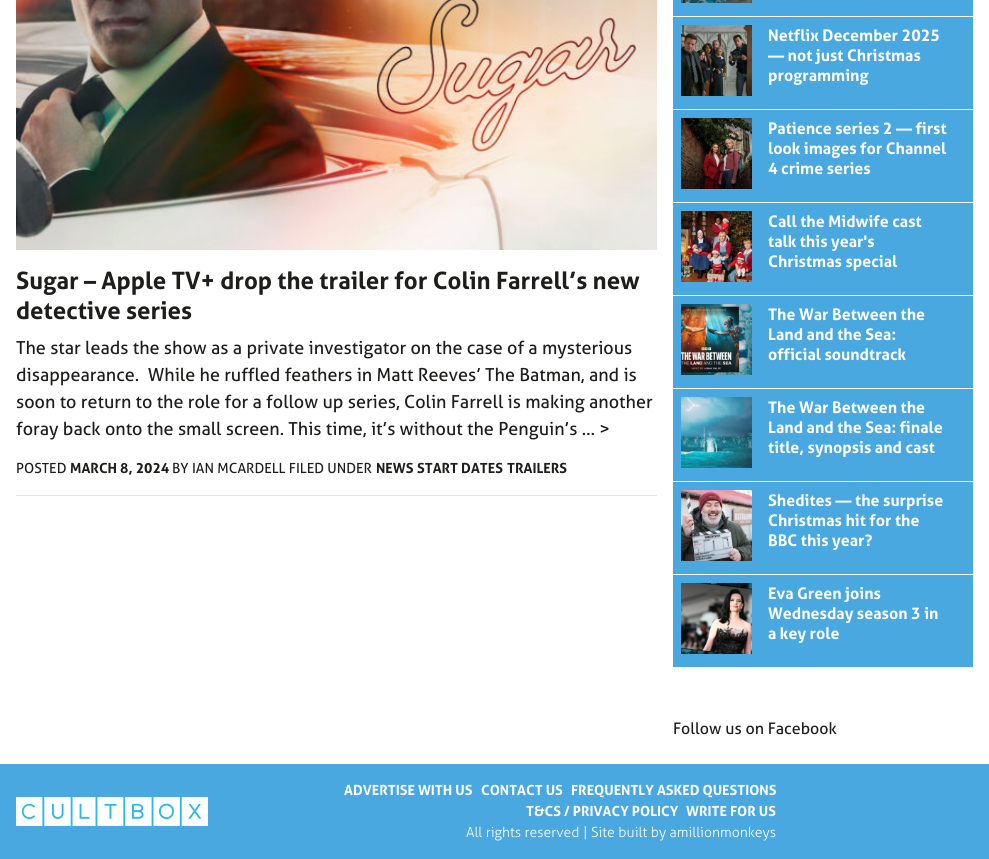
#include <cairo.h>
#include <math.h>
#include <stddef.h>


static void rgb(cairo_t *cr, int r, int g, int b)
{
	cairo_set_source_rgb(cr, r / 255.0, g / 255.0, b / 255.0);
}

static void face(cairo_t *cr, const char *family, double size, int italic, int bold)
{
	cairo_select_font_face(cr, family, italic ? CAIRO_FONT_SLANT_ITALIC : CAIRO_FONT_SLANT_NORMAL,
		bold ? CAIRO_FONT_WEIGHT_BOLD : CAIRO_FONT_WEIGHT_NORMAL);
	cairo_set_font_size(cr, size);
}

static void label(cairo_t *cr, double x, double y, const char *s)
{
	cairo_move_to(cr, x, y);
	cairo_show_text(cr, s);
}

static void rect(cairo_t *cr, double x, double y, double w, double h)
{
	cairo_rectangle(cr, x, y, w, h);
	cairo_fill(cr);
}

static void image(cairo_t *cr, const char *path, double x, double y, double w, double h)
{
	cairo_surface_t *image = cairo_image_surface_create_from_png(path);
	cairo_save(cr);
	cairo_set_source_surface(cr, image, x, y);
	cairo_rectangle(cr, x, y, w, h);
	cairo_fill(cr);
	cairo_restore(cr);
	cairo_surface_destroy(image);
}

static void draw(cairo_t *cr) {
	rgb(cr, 255, 255, 255);
	cairo_paint(cr);
	rgb(cr, 226, 232, 240);
	rect(cr, 16, 495, 641, 1);
	image(cr, "image0.png", 16, 0, 641, 250);
	face(cr, "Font", 24, 0, 1);
	rgb(cr, 29, 29, 27);
	label(cr, 16, 289, "Sugar – Apple TV+ drop the trailer for Colin Farrell’s new");
	label(cr, 16, 319, "detective series");
	face(cr, "Font", 18, 0, 0);
	label(cr, 16, 354, "The star leads the show as a private investigator on the case of a mysterious");
	label(cr, 16, 381, "disappearance.  While he ruffled feathers in Matt Reeves’ The Batman, and is");
	label(cr, 16, 408, "soon to return to the role for a follow up series, Colin Farrell is making another");
	label(cr, 16, 435, "foray back onto the small screen. This time, it’s without the Penguin’s … >");
	face(cr, "Font", 14, 0, 0);
	label(cr, 16, 473, "POSTED");
	face(cr, "Font", 14, 0, 1);
	label(cr, 70, 473, "MARCH 8, 2024");
	face(cr, "Font", 14, 0, 0);
	label(cr, 172, 473, "BY IAN MCARDELL FILED UNDER");
	face(cr, "Font", 14, 0, 1);
	label(cr, 376, 473, "NEWS");
	label(cr, 417, 473, "START DATES");
	label(cr, 507, 473, "TRAILERS");
	rgb(cr, 72, 168, 223);
	rect(cr, 673, 0, 300, 16);
	image(cr, "image1.png", 681, 0, 71, 3);
	rect(cr, 673, 17, 300, 92);
	image(cr, "image2.png", 681, 25, 71, 71);
	face(cr, "Font", 16, 0, 1);
	rgb(cr, 255, 255, 255);
	label(cr, 768, 41, "Netflix December 2025");
	label(cr, 768, 61, "— not just Christmas");
	label(cr, 768, 81, "programming");
	rgb(cr, 72, 168, 223);
	rect(cr, 673, 110, 300, 92);
	image(cr, "image3.png", 681, 118, 71, 71);
	rgb(cr, 255, 255, 255);
	label(cr, 768, 134, "Patience series 2 — first");
	label(cr, 768, 154, "look images for Channel");
	label(cr, 768, 174, "4 crime series");
	rgb(cr, 72, 168, 223);
	rect(cr, 673, 203, 300, 92);
	image(cr, "image4.png", 681, 211, 71, 71);
	rgb(cr, 255, 255, 255);
	label(cr, 768, 227, "Call the Midwife cast");
	label(cr, 768, 247, "talk this year's");
	label(cr, 768, 267, "Christmas special");
	rgb(cr, 72, 168, 223);
	rect(cr, 673, 296, 300, 92);
	image(cr, "image5.png", 681, 304, 71, 71);
	rgb(cr, 255, 255, 255);
	label(cr, 768, 320, "The War Between the");
	label(cr, 768, 340, "Land and the Sea:");
	label(cr, 768, 360, "official soundtrack");
	rgb(cr, 72, 168, 223);
	rect(cr, 673, 389, 300, 92);
	image(cr, "image6.png", 681, 397, 71, 71);
	rgb(cr, 255, 255, 255);
	label(cr, 768, 413, "The War Between the");
	label(cr, 768, 433, "Land and the Sea: finale");
	label(cr, 768, 453, "title, synopsis and cast");
	rgb(cr, 72, 168, 223);
	rect(cr, 673, 482, 300, 92);
	image(cr, "image7.png", 681, 490, 71, 71);
	rgb(cr, 255, 255, 255);
	label(cr, 768, 506, "Shedites — the surprise");
	label(cr, 768, 526, "Christmas hit for the");
	label(cr, 768, 546, "BBC this year?");
	rgb(cr, 72, 168, 223);
	rect(cr, 673, 575, 300, 92);
	image(cr, "image8.png", 681, 583, 71, 71);
	rgb(cr, 255, 255, 255);
	label(cr, 768, 599, "Eva Green joins");
	label(cr, 768, 619, "Wednesday season 3 in");
	label(cr, 768, 639, "a key role");
	face(cr, "Font", 16, 0, 0);
	rgb(cr, 29, 29, 27);
	label(cr, 673, 734, "Follow us on Facebook");
	rgb(cr, 72, 168, 223);
	rect(cr, 0, 764, 989, 95);
	image(cr, "image9.png", 16, 796, 192, 31);
	face(cr, "Font", 14, 0, 1);
	rgb(cr, 255, 255, 255);
	label(cr, 344, 795, "ADVERTISE WITH US");
	label(cr, 481, 795, "CONTACT US");
	label(cr, 571, 795, "FREQUENTLY ASKED QUESTIONS");
	label(cr, 526, 816, "T&CS / PRIVACY POLICY");
	label(cr, 686, 816, "WRITE FOR US");
	face(cr, "Font Light", 14, 0, 0);
	label(cr, 466, 837, "All rights reserved | Site built by amillionmonkeys");
}

int main(void) {
	cairo_surface_t *surface = cairo_image_surface_create(CAIRO_FORMAT_RGB24, 989, 859);
	cairo_t *cr = cairo_create(surface);
	cairo_font_options_t *options = cairo_font_options_create();
	cairo_font_options_set_hint_metrics(options, CAIRO_HINT_METRICS_OFF);
	cairo_font_options_set_hint_style(options, CAIRO_HINT_STYLE_NONE);
	cairo_set_font_options(cr, options);
	cairo_set_miter_limit(cr, 4);
	draw(cr);
	cairo_surface_write_to_png(surface, "render.png");
	cairo_font_options_destroy(options);
	cairo_destroy(cr);
	cairo_surface_destroy(surface);
	return 0;
}
